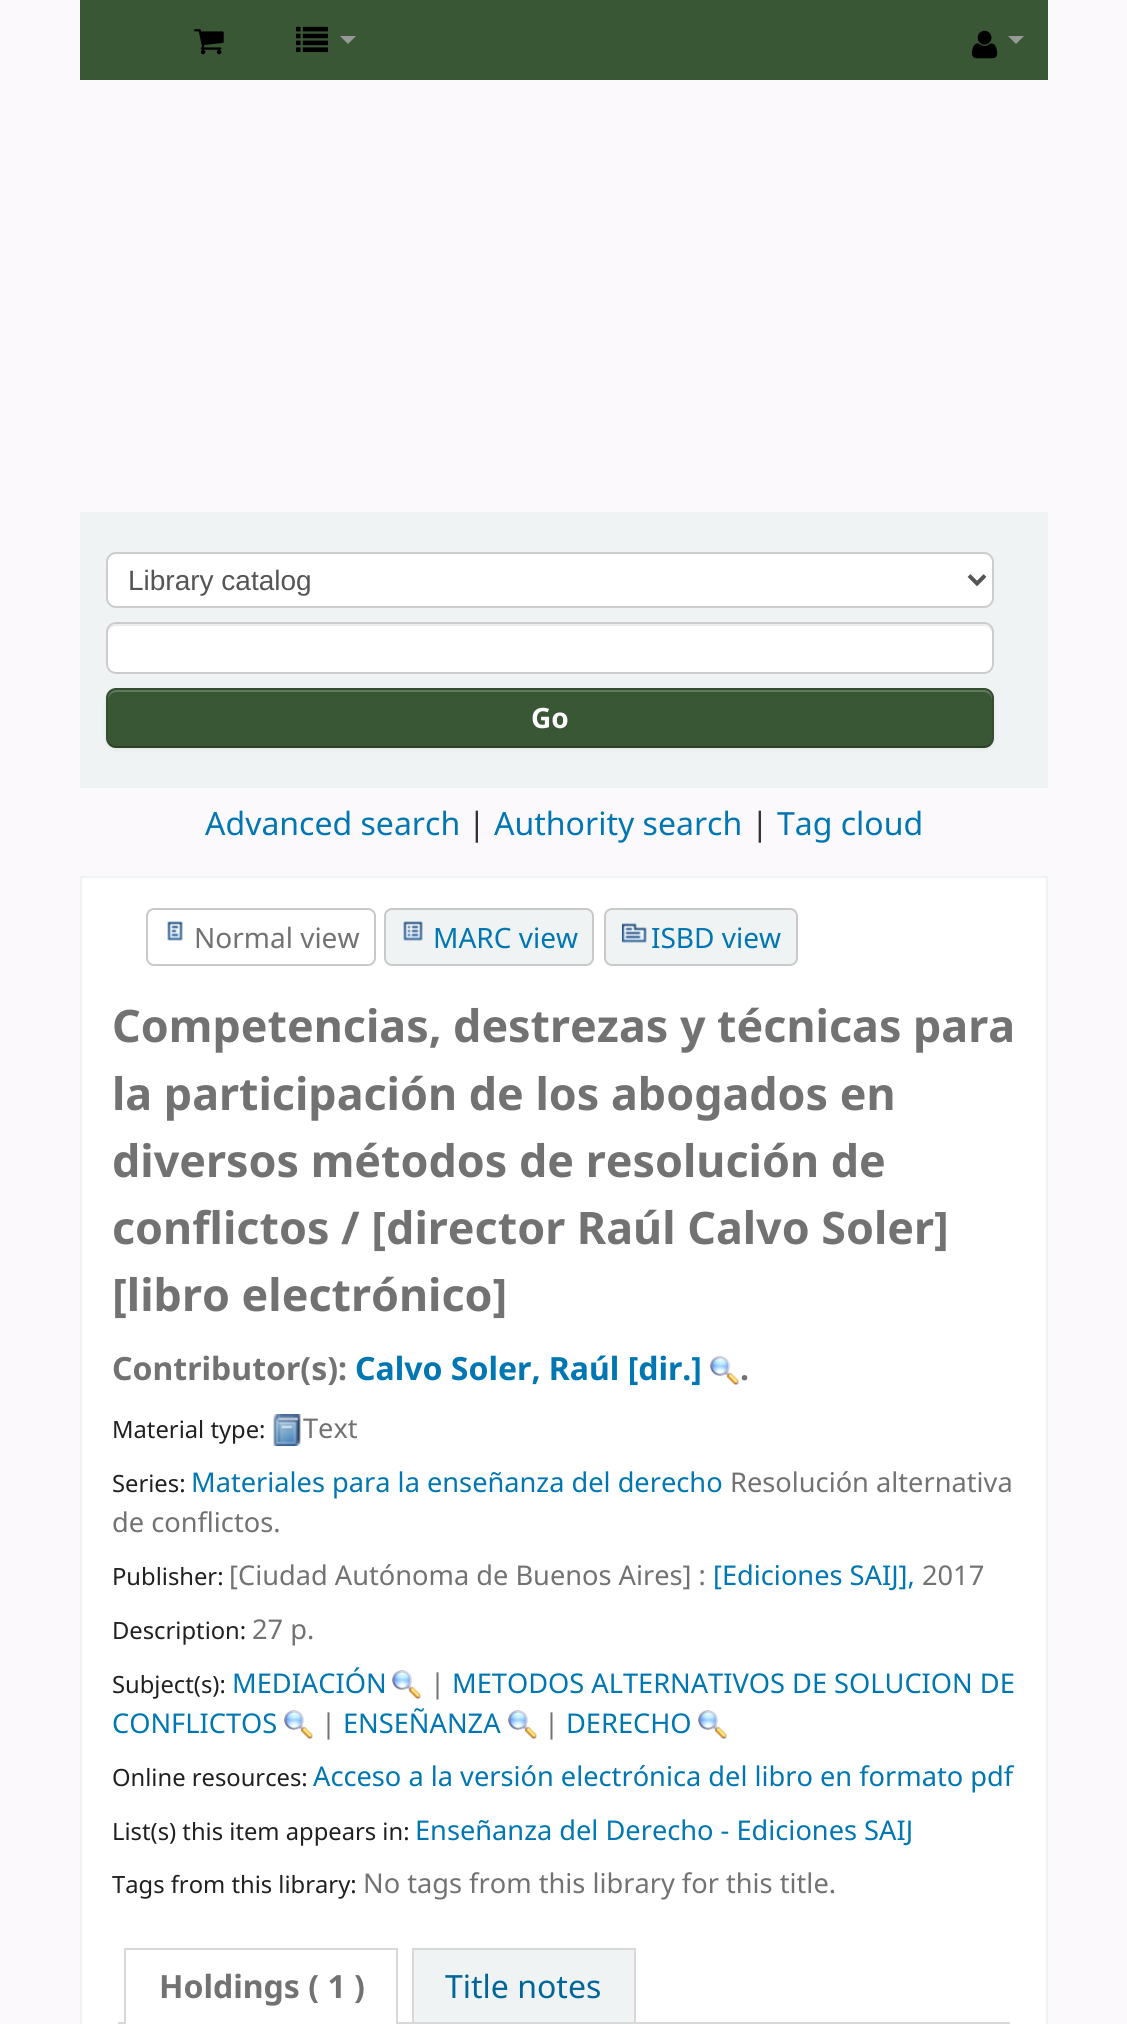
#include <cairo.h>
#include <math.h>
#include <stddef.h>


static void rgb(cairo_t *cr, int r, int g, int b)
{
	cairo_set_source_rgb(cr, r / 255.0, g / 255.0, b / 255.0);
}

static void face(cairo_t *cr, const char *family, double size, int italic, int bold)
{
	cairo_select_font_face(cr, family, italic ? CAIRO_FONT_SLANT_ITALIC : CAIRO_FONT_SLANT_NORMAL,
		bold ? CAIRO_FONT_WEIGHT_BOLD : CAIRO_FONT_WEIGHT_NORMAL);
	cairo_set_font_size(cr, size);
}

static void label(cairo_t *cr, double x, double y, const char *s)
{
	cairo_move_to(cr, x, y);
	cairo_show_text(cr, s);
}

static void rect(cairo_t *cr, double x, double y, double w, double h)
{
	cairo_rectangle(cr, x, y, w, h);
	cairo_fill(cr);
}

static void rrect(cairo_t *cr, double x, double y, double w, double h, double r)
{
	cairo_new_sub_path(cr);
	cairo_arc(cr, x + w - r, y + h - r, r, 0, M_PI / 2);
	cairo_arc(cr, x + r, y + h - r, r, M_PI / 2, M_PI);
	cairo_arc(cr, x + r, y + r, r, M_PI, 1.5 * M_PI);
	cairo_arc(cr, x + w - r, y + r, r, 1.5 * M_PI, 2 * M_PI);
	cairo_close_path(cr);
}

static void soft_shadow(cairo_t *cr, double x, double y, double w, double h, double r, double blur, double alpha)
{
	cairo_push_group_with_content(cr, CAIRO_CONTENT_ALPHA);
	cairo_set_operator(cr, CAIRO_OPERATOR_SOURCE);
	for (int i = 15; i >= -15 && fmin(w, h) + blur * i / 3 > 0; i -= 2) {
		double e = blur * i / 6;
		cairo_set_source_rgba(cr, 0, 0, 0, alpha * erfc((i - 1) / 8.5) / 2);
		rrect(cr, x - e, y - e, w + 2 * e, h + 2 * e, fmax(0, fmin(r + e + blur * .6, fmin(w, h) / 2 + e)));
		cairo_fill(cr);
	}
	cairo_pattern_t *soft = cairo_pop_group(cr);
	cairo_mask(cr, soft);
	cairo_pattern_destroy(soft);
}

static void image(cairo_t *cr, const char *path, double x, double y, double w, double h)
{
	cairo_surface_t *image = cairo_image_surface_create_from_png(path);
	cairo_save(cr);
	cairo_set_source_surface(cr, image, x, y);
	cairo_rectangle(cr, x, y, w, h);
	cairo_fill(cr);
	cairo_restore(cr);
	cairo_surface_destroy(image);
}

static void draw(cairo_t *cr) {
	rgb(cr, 252, 249, 252);
	cairo_paint(cr);
	rgb(cr, 57, 87, 53);
	rect(cr, 80, 0, 968, 80);
	image(cr, "image0.png", 194, 29, 30, 26);
	image(cr, "image1.png", 296, 26, 32, 26);
	rgb(cr, 153, 153, 153);
	cairo_new_path(cr);
	cairo_move_to(cr, 340, 36);
	cairo_line_to(cr, 356, 36);
	cairo_line_to(cr, 348, 44);
	cairo_close_path(cr);
	cairo_fill(cr);
	image(cr, "image2.png", 972, 30, 26, 29);
	cairo_new_path(cr);
	cairo_move_to(cr, 1008, 36);
	cairo_line_to(cr, 1024, 36);
	cairo_line_to(cr, 1016, 44);
	cairo_close_path(cr);
	cairo_fill(cr);
	rgb(cr, 240, 243, 243);
	rect(cr, 80, 512, 968, 276);
	rgb(cr, 255, 255, 255);
	rrect(cr, 107, 553, 886, 54, 9);
	cairo_fill_preserve(cr);
	rgb(cr, 204, 204, 204);
	cairo_stroke(cr);
	cairo_new_path(cr);
	cairo_move_to(cr, 969, 575.5);
	cairo_line_to(cr, 977, 583.5);
	cairo_line_to(cr, 985, 575.5);
	rgb(cr, 85, 85, 85);
	cairo_set_line_width(cr, 4);
	cairo_stroke(cr);
	face(cr, "Liberation Sans", 28, 0, 0);
	label(cr, 128, 590, "Library catalog");
	rgb(cr, 255, 255, 255);
	rrect(cr, 106, 622, 888, 52, 10);
	cairo_fill(cr);
	rgb(cr, 236, 236, 236);
	cairo_new_path(cr);
	cairo_move_to(cr, 116, 626);
	cairo_line_to(cr, 984, 626);
	cairo_curve_to(cr, 988, 626, 992, 630, 992, 634);
	cairo_line_to(cr, 992, 632);
	cairo_curve_to(cr, 992, 628, 988, 624, 984, 624);
	cairo_line_to(cr, 116, 624);
	cairo_curve_to(cr, 112, 624, 108, 628, 108, 632);
	cairo_line_to(cr, 108, 634);
	cairo_curve_to(cr, 108, 630, 112, 626, 116, 626);
	cairo_close_path(cr);
	cairo_fill(cr);
	rrect(cr, 107, 623, 886, 50, 9);
	rgb(cr, 204, 204, 204);
	cairo_set_line_width(cr, 2);
	cairo_stroke(cr);
	rgb(cr, 0, 0, 0);
	soft_shadow(cr, 106, 690, 888, 60, 10, 2, 0.05);
	rgb(cr, 57, 87, 53);
	rrect(cr, 106, 688, 888, 60, 10);
	cairo_fill(cr);
	rgb(cr, 97, 121, 93);
	cairo_new_path(cr);
	cairo_move_to(cr, 116, 692);
	cairo_line_to(cr, 984, 692);
	cairo_curve_to(cr, 988, 692, 992, 696, 992, 700);
	cairo_line_to(cr, 992, 698);
	cairo_curve_to(cr, 992, 694, 988, 690, 984, 690);
	cairo_line_to(cr, 116, 690);
	cairo_curve_to(cr, 112, 690, 108, 694, 108, 698);
	cairo_line_to(cr, 108, 700);
	cairo_curve_to(cr, 108, 696, 112, 692, 116, 692);
	cairo_close_path(cr);
	cairo_fill(cr);
	cairo_new_path(cr);
	cairo_move_to(cr, 990.5, 744.5);
	cairo_curve_to(cr, 988.5, 746, 986.5, 747, 984, 747);
	cairo_line_to(cr, 116, 747);
	cairo_curve_to(cr, 113.5, 747, 111.5, 746, 109.5, 744.5);
	cairo_set_source_rgba(cr, 0, 0, 0, 0.25);
	cairo_stroke(cr);
	cairo_new_path(cr);
	cairo_move_to(cr, 109.5, 744.5);
	cairo_curve_to(cr, 108, 742.5, 107, 740.5, 107, 738);
	cairo_line_to(cr, 107, 698);
	cairo_curve_to(cr, 107, 695.5, 108, 693.5, 109.5, 691.5);
	cairo_curve_to(cr, 111.5, 690, 113.5, 689, 116, 689);
	cairo_line_to(cr, 984, 689);
	cairo_curve_to(cr, 986.5, 689, 988.5, 690, 990.5, 691.5);
	cairo_curve_to(cr, 992, 693.5, 993, 695.5, 993, 698);
	cairo_line_to(cr, 993, 738);
	cairo_curve_to(cr, 993, 740.5, 992, 742.5, 990.5, 744.5);
	cairo_set_source_rgba(cr, 0, 0, 0, 0.1);
	cairo_stroke(cr);
	face(cr, "Noto Sans", 28, 0, 1);
	rgb(cr, 255, 255, 255);
	label(cr, 531, 728, "Go");
	face(cr, "Noto Sans", 32, 0, 0);
	rgb(cr, 0, 118, 178);
	label(cr, 205, 835, "Advanced search");
	rgb(cr, 51, 51, 51);
	label(cr, 468, 835, "|");
	rgb(cr, 0, 118, 178);
	label(cr, 494, 835, "Authority search");
	rgb(cr, 51, 51, 51);
	label(cr, 751, 835, "|");
	rgb(cr, 0, 118, 178);
	label(cr, 777, 835, "Tag cloud");
	rgb(cr, 255, 255, 255);
	cairo_rectangle(cr, 81, 877, 966, 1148);
	cairo_fill_preserve(cr);
	rgb(cr, 240, 243, 243);
	cairo_stroke(cr);
	rrect(cr, 147, 909, 228, 56, 7);
	rgb(cr, 201, 201, 201);
	cairo_stroke(cr);
	image(cr, "image3.png", 167, 921, 16, 20);
	face(cr, "Noto Sans", 28, 0, 0);
	rgb(cr, 114, 114, 114);
	label(cr, 194, 948, "Normal view");
	rgb(cr, 240, 243, 243);
	rrect(cr, 385, 909, 208, 56, 7);
	cairo_fill_preserve(cr);
	rgb(cr, 201, 201, 201);
	cairo_stroke(cr);
	image(cr, "image4.png", 403, 921, 20, 20);
	rgb(cr, 0, 118, 178);
	label(cr, 433, 948, "MARC view");
	rgb(cr, 240, 243, 243);
	rrect(cr, 605, 909, 192, 56, 7);
	cairo_fill_preserve(cr);
	rgb(cr, 201, 201, 201);
	cairo_stroke(cr);
	image(cr, "image5.png", 622, 923, 25, 20);
	rgb(cr, 0, 118, 178);
	label(cr, 651, 948, "ISBD view");
	face(cr, "Noto Sans", 44.8, 0, 1);
	rgb(cr, 114, 114, 114);
	label(cr, 112, 1042, "Competencias, destrezas y técnicas para");
	label(cr, 112, 1110, "la participación de los abogados en");
	label(cr, 112, 1177, "diversos métodos de resolución de");
	label(cr, 112, 1244, "conflictos / [director Raúl Calvo Soler]");
	label(cr, 112, 1311, "[libro electrónico]");
	face(cr, "Noto Sans", 32, 0, 1);
	label(cr, 112, 1380, "Contributor(s):");
	rgb(cr, 0, 118, 178);
	label(cr, 355, 1380, "Calvo Soler, Raúl [dir.]");
	image(cr, "image6.png", 710, 1356, 29, 29);
	rgb(cr, 114, 114, 114);
	label(cr, 740, 1380, ".");
	face(cr, "Noto Sans", 23.75, 0, 0);
	rgb(cr, 32, 32, 32);
	label(cr, 112, 1438, "Material type:");
	image(cr, "image7.png", 273, 1414, 28, 32);
	face(cr, "Noto Sans", 27.2, 0, 0);
	rgb(cr, 114, 114, 114);
	label(cr, 303, 1438, "Text");
	face(cr, "Noto Sans", 23.75, 0, 0);
	rgb(cr, 32, 32, 32);
	label(cr, 112, 1492, "Series:");
	face(cr, "Noto Sans", 27.2, 0, 0);
	rgb(cr, 0, 118, 178);
	label(cr, 191, 1492, "Materiales para la enseñanza del derecho");
	rgb(cr, 114, 114, 114);
	label(cr, 730, 1492, "Resolución alternativa");
	label(cr, 112, 1532, "de conflictos.");
	face(cr, "Noto Sans", 23.75, 0, 0);
	rgb(cr, 32, 32, 32);
	label(cr, 112, 1585, "Publisher:");
	face(cr, "Noto Sans", 27.2, 0, 0);
	rgb(cr, 114, 114, 114);
	label(cr, 229, 1585, "[Ciudad Autónoma de Buenos Aires] :");
	rgb(cr, 0, 118, 178);
	label(cr, 713, 1585, "[Ediciones SAIJ],");
	rgb(cr, 114, 114, 114);
	label(cr, 922, 1585, "2017");
	face(cr, "Noto Sans", 23.75, 0, 0);
	rgb(cr, 32, 32, 32);
	label(cr, 112, 1639, "Description:");
	face(cr, "Noto Sans", 27.2, 0, 0);
	rgb(cr, 114, 114, 114);
	label(cr, 252, 1639, "27 p.");
	face(cr, "Noto Sans", 23.75, 0, 0);
	rgb(cr, 32, 32, 32);
	label(cr, 112, 1693, "Subject(s):");
	face(cr, "Noto Sans", 27.2, 0, 0);
	rgb(cr, 0, 118, 178);
	label(cr, 232, 1693, "MEDIACIÓN");
	image(cr, "image8.png", 392, 1670, 29, 29);
	rgb(cr, 114, 114, 114);
	label(cr, 430, 1693, "|");
	rgb(cr, 0, 118, 178);
	label(cr, 452, 1693, "METODOS ALTERNATIVOS DE SOLUCION DE");
	label(cr, 112, 1733, "CONFLICTOS");
	image(cr, "image6.png", 284, 1710, 29, 29);
	rgb(cr, 114, 114, 114);
	label(cr, 321, 1733, "|");
	rgb(cr, 0, 118, 178);
	label(cr, 343, 1733, "ENSEÑANZA");
	image(cr, "image6.png", 508, 1710, 29, 29);
	rgb(cr, 114, 114, 114);
	label(cr, 544, 1733, "|");
	rgb(cr, 0, 118, 178);
	label(cr, 566, 1733, "DERECHO");
	image(cr, "image6.png", 698, 1710, 29, 29);
	face(cr, "Noto Sans", 23.75, 0, 0);
	rgb(cr, 32, 32, 32);
	label(cr, 112, 1786, "Online resources:");
	face(cr, "Noto Sans", 27.2, 0, 0);
	rgb(cr, 0, 118, 178);
	label(cr, 313, 1786, "Acceso a la versión electrónica del libro en formato pdf");
	face(cr, "Noto Sans", 23.75, 0, 0);
	rgb(cr, 32, 32, 32);
	label(cr, 112, 1840, "List(s) this item appears in:");
	face(cr, "Noto Sans", 27.2, 0, 0);
	rgb(cr, 0, 118, 178);
	label(cr, 415, 1840, "Enseñanza del Derecho - Ediciones SAIJ");
	face(cr, "Noto Sans", 23.75, 0, 0);
	rgb(cr, 32, 32, 32);
	label(cr, 112, 1893, "Tags from this library:");
	face(cr, "Noto Sans", 27.2, 0, 0);
	rgb(cr, 114, 114, 114);
	label(cr, 363, 1893, "No tags from this library for this title.");
	cairo_rectangle(cr, 119, 2023, 890, 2);
	rgb(cr, 216, 216, 216);
	cairo_stroke(cr);
	rgb(cr, 255, 255, 255);
	rect(cr, 126, 2022, 270, 2);
	rgb(cr, 216, 216, 216);
	rect(cr, 124, 1948, 274, 2);
	rect(cr, 396, 1948, 2, 76);
	rect(cr, 124, 1948, 2, 76);
	face(cr, "Noto Sans", 32, 0, 1);
	rgb(cr, 114, 114, 114);
	label(cr, 159, 1998, "Holdings ( 1 )");
	rgb(cr, 240, 243, 243);
	rect(cr, 414, 1950, 220, 72);
	rgb(cr, 216, 216, 216);
	rect(cr, 412, 1948, 224, 2);
	rect(cr, 634, 1948, 2, 74);
	rect(cr, 412, 1948, 2, 74);
	face(cr, "Noto Sans", 32, 0, 0);
	rgb(cr, 0, 102, 153);
	label(cr, 445, 1998, "Title notes");
}

int main(void) {
	cairo_surface_t *surface = cairo_image_surface_create(CAIRO_FORMAT_RGB24, 1127, 2024);
	cairo_t *cr = cairo_create(surface);
	cairo_font_options_t *options = cairo_font_options_create();
	cairo_font_options_set_hint_metrics(options, CAIRO_HINT_METRICS_OFF);
	cairo_font_options_set_hint_style(options, CAIRO_HINT_STYLE_NONE);
	cairo_set_font_options(cr, options);
	cairo_set_miter_limit(cr, 4);
	draw(cr);
	cairo_surface_write_to_png(surface, "render.png");
	cairo_font_options_destroy(options);
	cairo_destroy(cr);
	cairo_surface_destroy(surface);
	return 0;
}
